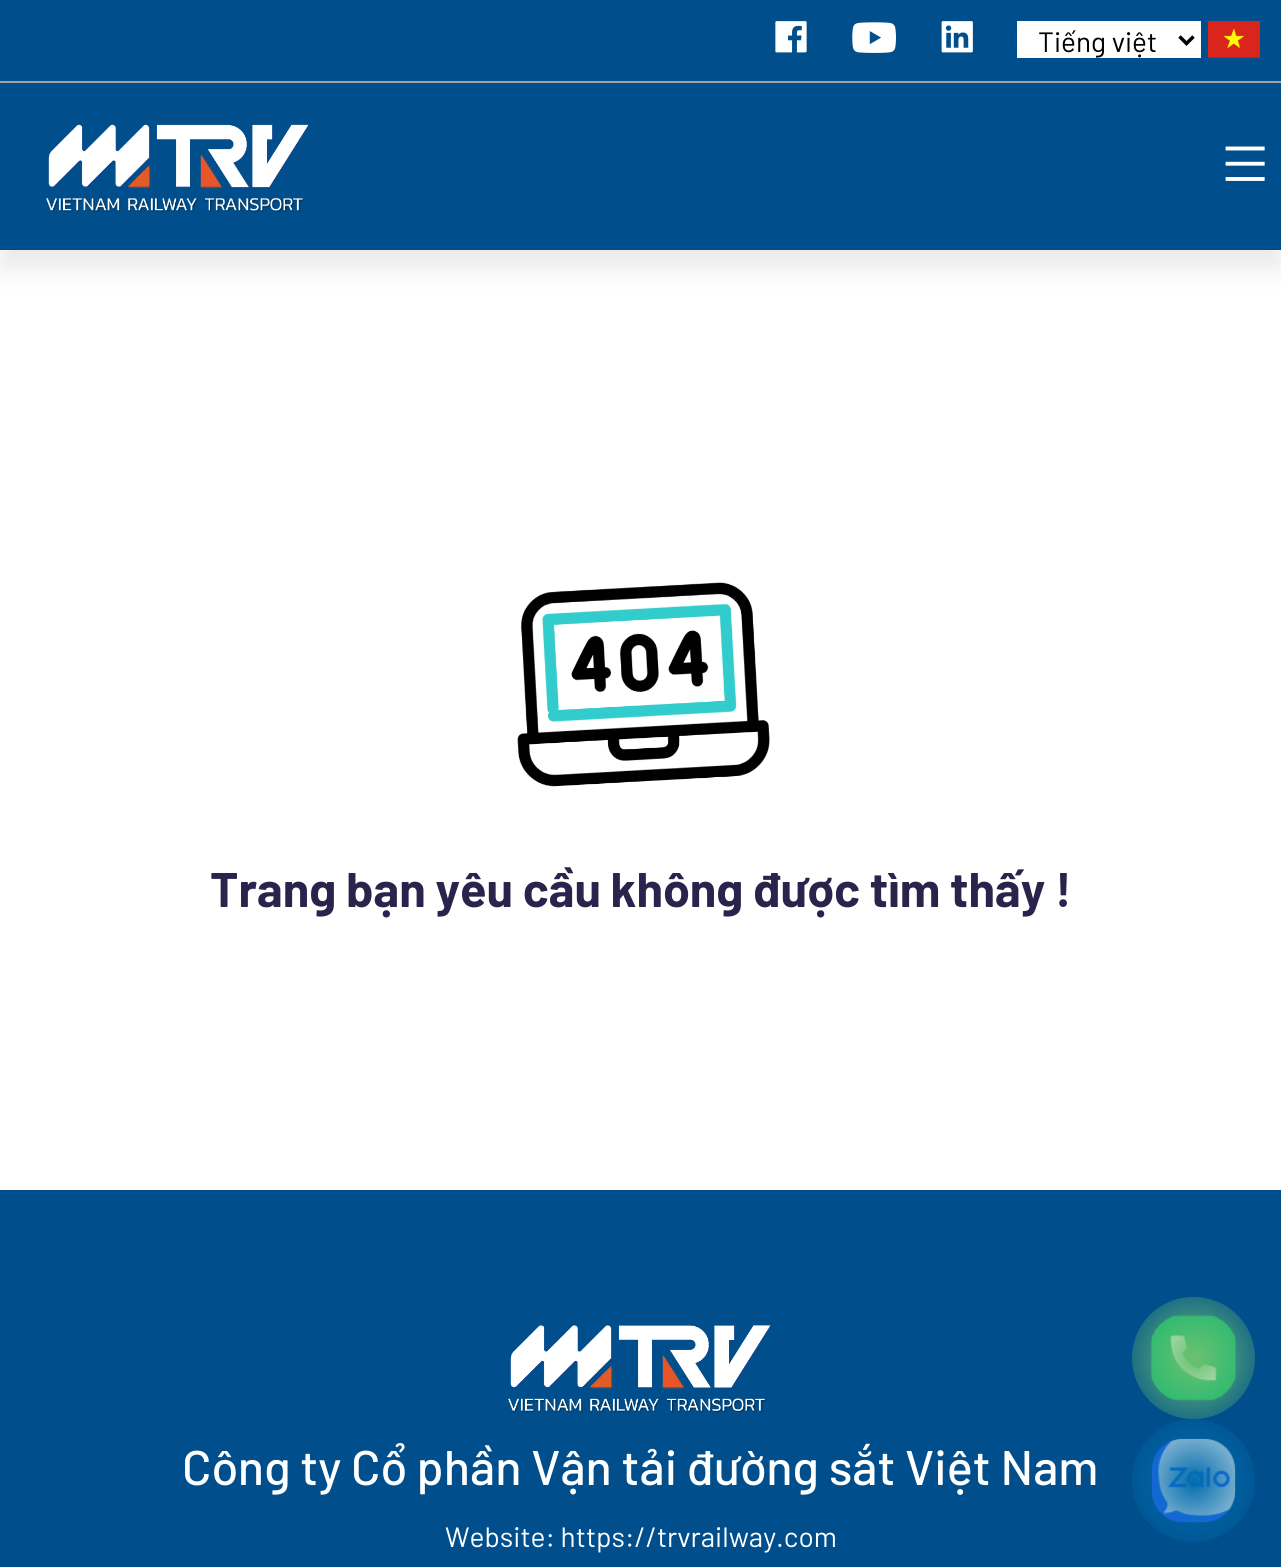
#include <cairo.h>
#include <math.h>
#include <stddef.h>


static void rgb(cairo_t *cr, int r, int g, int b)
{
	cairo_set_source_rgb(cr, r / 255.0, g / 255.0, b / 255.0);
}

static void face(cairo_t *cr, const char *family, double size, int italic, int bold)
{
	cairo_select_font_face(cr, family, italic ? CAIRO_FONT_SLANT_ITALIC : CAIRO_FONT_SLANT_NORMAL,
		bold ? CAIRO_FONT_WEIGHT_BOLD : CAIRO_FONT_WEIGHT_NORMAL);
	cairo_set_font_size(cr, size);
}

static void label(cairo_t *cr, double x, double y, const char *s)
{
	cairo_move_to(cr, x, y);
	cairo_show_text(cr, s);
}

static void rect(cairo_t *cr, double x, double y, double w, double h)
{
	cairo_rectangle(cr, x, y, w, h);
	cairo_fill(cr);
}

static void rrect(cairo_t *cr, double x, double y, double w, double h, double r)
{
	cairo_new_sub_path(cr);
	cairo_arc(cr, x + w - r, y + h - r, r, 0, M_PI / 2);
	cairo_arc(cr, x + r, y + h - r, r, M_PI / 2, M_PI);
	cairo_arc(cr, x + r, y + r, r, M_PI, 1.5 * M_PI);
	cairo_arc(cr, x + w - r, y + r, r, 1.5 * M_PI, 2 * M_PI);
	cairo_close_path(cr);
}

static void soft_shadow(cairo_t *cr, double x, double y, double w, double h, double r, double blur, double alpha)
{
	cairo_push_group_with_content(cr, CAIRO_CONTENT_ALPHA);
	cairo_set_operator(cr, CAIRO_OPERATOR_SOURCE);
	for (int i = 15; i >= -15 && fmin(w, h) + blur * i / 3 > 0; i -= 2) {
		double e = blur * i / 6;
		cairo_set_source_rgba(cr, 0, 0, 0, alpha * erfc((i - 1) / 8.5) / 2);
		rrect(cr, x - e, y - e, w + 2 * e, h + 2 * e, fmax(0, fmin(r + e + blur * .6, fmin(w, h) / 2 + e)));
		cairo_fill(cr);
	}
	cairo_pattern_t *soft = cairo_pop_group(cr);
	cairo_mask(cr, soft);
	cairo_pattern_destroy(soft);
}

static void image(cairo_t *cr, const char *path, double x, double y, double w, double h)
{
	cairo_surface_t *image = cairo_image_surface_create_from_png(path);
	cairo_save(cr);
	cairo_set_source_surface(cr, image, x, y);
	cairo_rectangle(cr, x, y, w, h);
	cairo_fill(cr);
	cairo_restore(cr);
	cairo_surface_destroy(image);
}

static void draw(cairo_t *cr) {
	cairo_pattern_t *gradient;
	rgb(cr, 255, 255, 255);
	cairo_paint(cr);
	rgb(cr, 25, 25, 25);
	soft_shadow(cr, 0, 18, 1281, 250, 0, 13, 0.1);
	rgb(cr, 0, 79, 140);
	rect(cr, 0, 0, 1281, 250);
	rgb(cr, 163, 163, 163);
	rect(cr, 0, 81, 1281, 2);
	image(cr, "image0.png", 775, 21, 32, 32);
	image(cr, "image1.png", 852, 22, 44, 31);
	image(cr, "image2.png", 941, 21, 32, 32);
	rgb(cr, 255, 255, 255);
	rect(cr, 1017, 21, 184, 37);
	cairo_new_path(cr);
	cairo_move_to(cr, 1179.5, 36.5);
	cairo_line_to(cr, 1186.5, 43.5);
	cairo_line_to(cr, 1193.5, 36.5);
	rgb(cr, 0, 0, 0);
	cairo_set_line_width(cr, 3.5);
	cairo_stroke(cr);
	face(cr, "Barlow", 28, 0, 0);
	label(cr, 1038, 52, "Tiếng việt");
	image(cr, "image3.png", 1208, 21, 52, 37);
	image(cr, "image4.png", 46, 124, 263, 89);
	image(cr, "image5.png", 1225, 146, 40, 35);
	image(cr, "image6.png", 517, 582, 253, 205);
	face(cr, "Barlow", 48.6, 0, 1);
	rgb(cr, 44, 35, 77);
	label(cr, 210, 907, "Trang bạn yêu cầu không được tìm thấy !");
	rgb(cr, 0, 79, 140);
	rect(cr, 0, 1190, 1281, 377);
	image(cr, "image7.png", 1150, 1315, 86, 86);
	gradient = cairo_pattern_create_radial(1194, 1358, 0, 1194, 1358, 87);
	cairo_pattern_add_color_stop_rgba(gradient, 0, 0.424, 0.753, 0.439, 1);
	cairo_pattern_add_color_stop_rgba(gradient, 1, 0.424, 0.753, 0.439, 0);
	cairo_set_source(cr, gradient);
	cairo_pattern_destroy(gradient);
	rrect(cr, 1132, 1297, 123, 122, 61);
	cairo_fill(cr);
	image(cr, "image8.png", 508, 1325, 263, 88);
	face(cr, "Barlow Medium", 48.6, 0, 0);
	rgb(cr, 255, 255, 255);
	label(cr, 182, 1485, "Công ty Cổ phần Vận tải đường sắt Việt Nam");
	face(cr, "Barlow", 28, 0, 0);
	label(cr, 445, 1547, "Website: https://trvrailway.com");
	image(cr, "image9.png", 1151, 1438, 85, 85);
	gradient = cairo_pattern_create_radial(1194, 1481, 0, 1194, 1481, 87);
	cairo_pattern_add_color_stop_rgba(gradient, 0, 0, 0.427, 0.682, 1);
	cairo_pattern_add_color_stop_rgba(gradient, 1, 0, 0.427, 0.682, 0);
	cairo_set_source(cr, gradient);
	cairo_pattern_destroy(gradient);
	cairo_arc(cr, 1193.5, 1480.5, 61.5, 0, 2 * M_PI);
	cairo_fill(cr);
}

int main(void) {
	cairo_surface_t *surface = cairo_image_surface_create(CAIRO_FORMAT_RGB24, 1281, 1567);
	cairo_t *cr = cairo_create(surface);
	cairo_font_options_t *options = cairo_font_options_create();
	cairo_font_options_set_hint_metrics(options, CAIRO_HINT_METRICS_OFF);
	cairo_font_options_set_hint_style(options, CAIRO_HINT_STYLE_NONE);
	cairo_set_font_options(cr, options);
	cairo_set_miter_limit(cr, 4);
	draw(cr);
	cairo_surface_write_to_png(surface, "render.png");
	cairo_font_options_destroy(options);
	cairo_destroy(cr);
	cairo_surface_destroy(surface);
	return 0;
}
